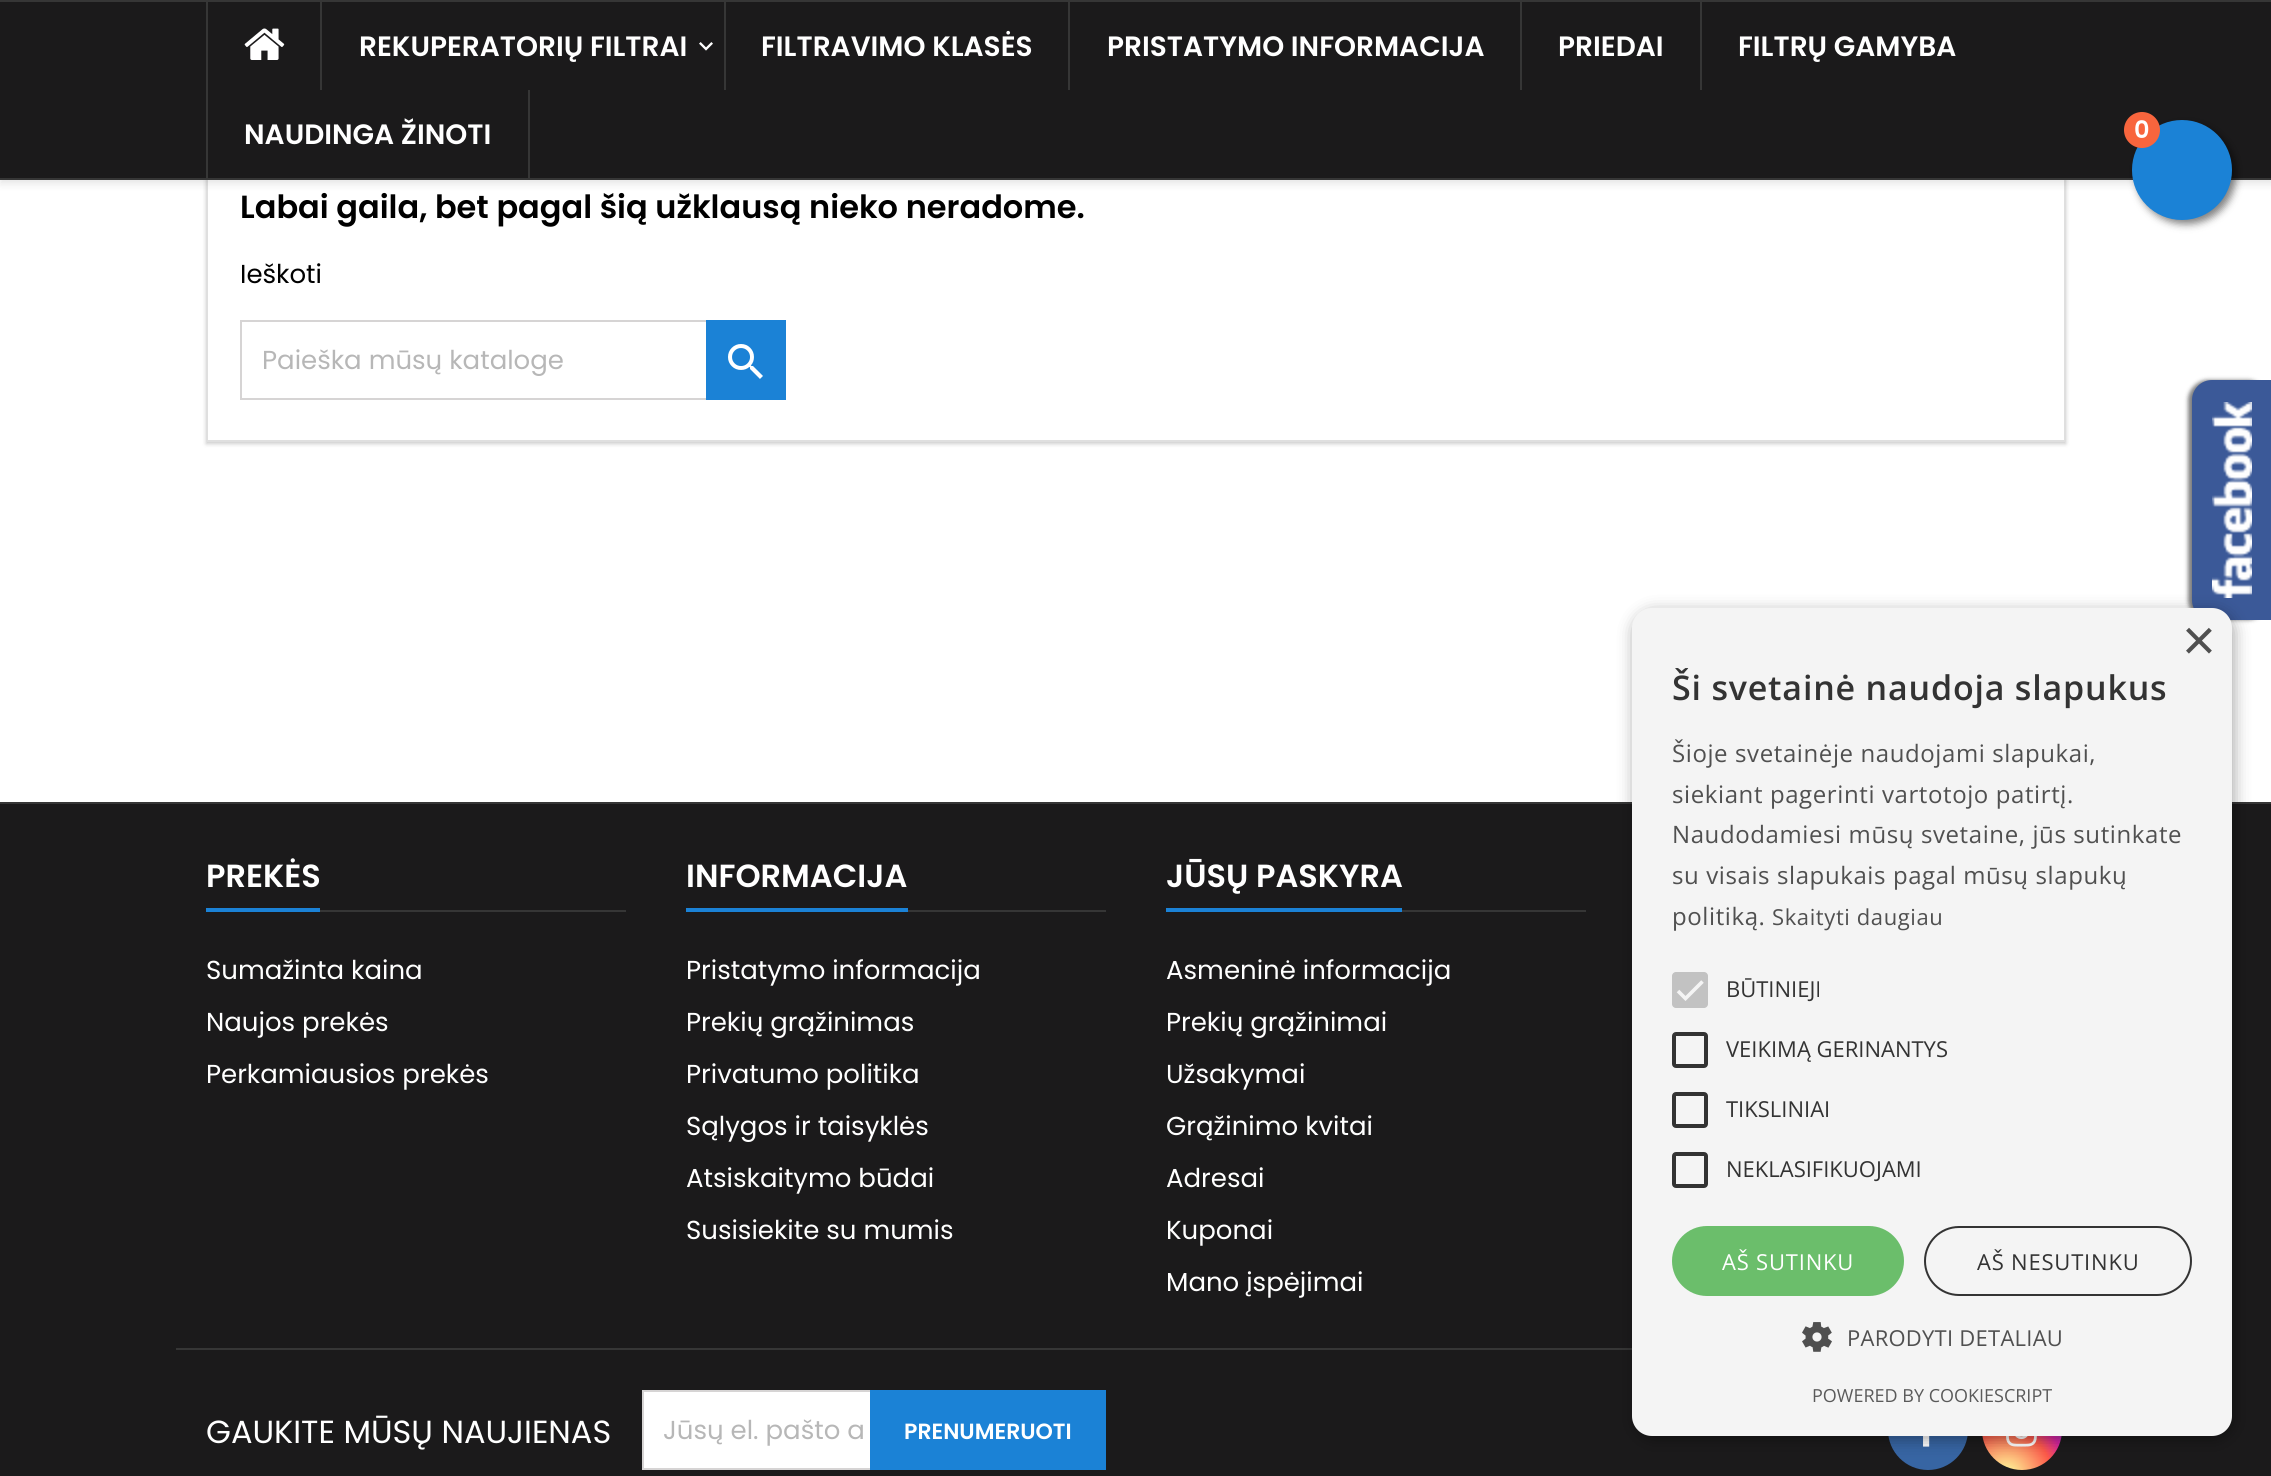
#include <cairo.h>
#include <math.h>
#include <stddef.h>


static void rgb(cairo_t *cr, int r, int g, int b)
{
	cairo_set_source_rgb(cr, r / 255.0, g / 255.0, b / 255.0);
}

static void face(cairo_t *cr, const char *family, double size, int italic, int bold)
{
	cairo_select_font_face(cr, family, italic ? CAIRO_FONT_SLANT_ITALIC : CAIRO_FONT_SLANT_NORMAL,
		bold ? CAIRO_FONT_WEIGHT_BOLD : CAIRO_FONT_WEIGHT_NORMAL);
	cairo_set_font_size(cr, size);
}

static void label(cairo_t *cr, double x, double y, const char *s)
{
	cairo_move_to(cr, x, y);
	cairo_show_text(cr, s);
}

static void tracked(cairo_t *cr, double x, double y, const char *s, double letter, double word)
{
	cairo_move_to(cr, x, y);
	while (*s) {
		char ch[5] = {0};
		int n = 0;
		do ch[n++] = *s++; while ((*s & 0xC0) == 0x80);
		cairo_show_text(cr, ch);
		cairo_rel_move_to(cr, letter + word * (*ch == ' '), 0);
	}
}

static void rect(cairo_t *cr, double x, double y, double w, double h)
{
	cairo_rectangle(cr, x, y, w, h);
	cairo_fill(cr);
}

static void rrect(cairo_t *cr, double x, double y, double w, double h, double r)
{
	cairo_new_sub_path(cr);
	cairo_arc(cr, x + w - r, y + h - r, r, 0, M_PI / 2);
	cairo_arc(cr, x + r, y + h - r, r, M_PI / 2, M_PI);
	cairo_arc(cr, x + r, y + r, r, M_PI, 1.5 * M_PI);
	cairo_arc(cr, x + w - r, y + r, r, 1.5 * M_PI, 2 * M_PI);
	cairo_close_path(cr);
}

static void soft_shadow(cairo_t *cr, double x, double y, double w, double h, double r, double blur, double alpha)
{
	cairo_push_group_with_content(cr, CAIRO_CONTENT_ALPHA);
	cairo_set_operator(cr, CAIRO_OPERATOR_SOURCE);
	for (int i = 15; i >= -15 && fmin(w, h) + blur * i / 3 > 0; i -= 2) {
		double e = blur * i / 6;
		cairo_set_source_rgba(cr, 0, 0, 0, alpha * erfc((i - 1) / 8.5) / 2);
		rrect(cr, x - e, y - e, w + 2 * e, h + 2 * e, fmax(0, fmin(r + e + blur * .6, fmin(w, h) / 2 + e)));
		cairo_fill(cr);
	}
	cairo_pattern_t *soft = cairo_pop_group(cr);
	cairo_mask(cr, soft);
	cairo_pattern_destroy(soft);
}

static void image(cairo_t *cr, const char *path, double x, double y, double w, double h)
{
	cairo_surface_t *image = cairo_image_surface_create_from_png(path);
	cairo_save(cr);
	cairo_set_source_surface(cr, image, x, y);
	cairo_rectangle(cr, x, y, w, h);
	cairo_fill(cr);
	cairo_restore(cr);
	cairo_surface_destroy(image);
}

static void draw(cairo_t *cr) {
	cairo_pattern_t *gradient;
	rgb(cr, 255, 255, 255);
	cairo_paint(cr);
	cairo_save(cr);
	cairo_set_fill_rule(cr, CAIRO_FILL_RULE_EVEN_ODD);
	cairo_new_path(cr);
	cairo_move_to(cr, 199, 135);
	cairo_line_to(cr, 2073, 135);
	cairo_line_to(cr, 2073, 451);
	cairo_line_to(cr, 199, 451);
	cairo_close_path(cr);
	cairo_move_to(cr, 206, 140);
	cairo_line_to(cr, 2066, 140);
	cairo_line_to(cr, 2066, 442);
	cairo_line_to(cr, 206, 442);
	cairo_close_path(cr);
	cairo_clip(cr);
	rgb(cr, 0, 0, 0);
	soft_shadow(cr, 206, 142, 1860, 302, 0, 2, 0.2);
	cairo_restore(cr);
	cairo_rectangle(cr, 207, 141, 1858, 300);
	rgb(cr, 223, 223, 223);
	cairo_stroke(cr);
	rgb(cr, 0, 0, 0);
	soft_shadow(cr, 0, 4, 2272, 180, 0, 4, 0.1);
	rgb(cr, 27, 26, 27);
	rect(cr, 0, 2, 2271, 176);
	rgb(cr, 54, 54, 54);
	rect(cr, 0, 0, 2271, 2);
	rect(cr, 0, 178, 2271, 2);
	rect(cr, 206, 2, 2, 176);
	image(cr, "image0.png", 244, 28, 41, 32);
	rect(cr, 320, 2, 2, 88);
	face(cr, "Poppins SemiBold", 28, 0, 0);
	rgb(cr, 255, 255, 255);
	label(cr, 359, 56, "REKUPERATORIŲ FILTRAI");
	image(cr, "image1.png", 699, 42, 14, 9);
	rgb(cr, 54, 54, 54);
	rect(cr, 724, 2, 2, 88);
	rgb(cr, 255, 255, 255);
	label(cr, 761, 56, "FILTRAVIMO KLASĖS");
	rgb(cr, 54, 54, 54);
	rect(cr, 1068, 2, 2, 88);
	rgb(cr, 255, 255, 255);
	label(cr, 1107, 56, "PRISTATYMO INFORMACIJA");
	rgb(cr, 54, 54, 54);
	rect(cr, 1520, 2, 2, 88);
	rgb(cr, 255, 255, 255);
	label(cr, 1558, 56, "PRIEDAI");
	rgb(cr, 54, 54, 54);
	rect(cr, 1700, 2, 2, 88);
	rgb(cr, 255, 255, 255);
	label(cr, 1738, 56, "FILTRŲ GAMYBA");
	rgb(cr, 54, 54, 54);
	rect(cr, 528, 90, 2, 88);
	rgb(cr, 255, 255, 255);
	label(cr, 244, 144, "NAUDINGA ŽINOTI");
	rgb(cr, 0, 0, 0);
	soft_shadow(cr, 2136, 124, 100, 100, 50, 4, 0.5);
	rgb(cr, 27, 130, 214);
	cairo_arc(cr, 2182, 170, 50, 0, 2 * M_PI);
	cairo_fill(cr);
	rgb(cr, 248, 101, 61);
	cairo_arc(cr, 2142, 130, 18, 0, 2 * M_PI);
	cairo_fill(cr);
	face(cr, "Poppins SemiBold", 24, 0, 0);
	rgb(cr, 255, 255, 255);
	label(cr, 2134, 138, "0");
	face(cr, "Poppins SemiBold", 32, 0, 0);
	rgb(cr, 0, 0, 0);
	label(cr, 240, 218, "Labai gaila, bet pagal šią užklausą nieko neradome.");
	face(cr, "Poppins", 26, 0, 0);
	label(cr, 240, 283, "Ieškoti");
	cairo_rectangle(cr, 241, 321, 544, 78);
	rgb(cr, 214, 212, 212);
	cairo_stroke(cr);
	rgb(cr, 183, 183, 183);
	label(cr, 262, 369, "Paieška mūsų kataloge");
	rgb(cr, 27, 130, 214);
	rect(cr, 706, 320, 80, 80);
	image(cr, "image2.png", 728, 344, 35, 35);
	rgb(cr, 0, 0, 0);
	soft_shadow(cr, 2188, 380, 80, 240, 20, 2, 0.5);
	rgb(cr, 59, 89, 152);
	cairo_new_path(cr);
	cairo_move_to(cr, 2212, 380);
	cairo_line_to(cr, 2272, 380);
	cairo_line_to(cr, 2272, 620);
	cairo_line_to(cr, 2212, 620);
	cairo_curve_to(cr, 2201, 620, 2192, 611, 2192, 600);
	cairo_line_to(cr, 2192, 400);
	cairo_curve_to(cr, 2192, 389, 2201, 380, 2212, 380);
	cairo_close_path(cr);
	cairo_fill(cr);
	image(cr, "image3.png", 2212, 402, 40, 196);
	rgb(cr, 27, 26, 27);
	rect(cr, 0, 804, 2271, 672);
	rgb(cr, 54, 54, 54);
	rect(cr, 0, 802, 2271, 2);
	rect(cr, 320, 910, 306, 2);
	rgb(cr, 27, 130, 214);
	rect(cr, 206, 908, 114, 4);
	face(cr, "Poppins SemiBold", 32, 0, 0);
	rgb(cr, 255, 255, 255);
	label(cr, 206, 887, "PREKĖS");
	face(cr, "Poppins", 26, 0, 0);
	label(cr, 206, 979, "Sumažinta kaina");
	label(cr, 206, 1031, "Naujos prekės");
	label(cr, 206, 1083, "Perkamiausios prekės");
	rgb(cr, 54, 54, 54);
	rect(cr, 908, 910, 198, 2);
	rgb(cr, 27, 130, 214);
	rect(cr, 686, 908, 222, 4);
	face(cr, "Poppins SemiBold", 32, 0, 0);
	rgb(cr, 255, 255, 255);
	label(cr, 686, 887, "INFORMACIJA");
	face(cr, "Poppins", 26, 0, 0);
	label(cr, 686, 979, "Pristatymo informacija");
	label(cr, 686, 1031, "Prekių grąžinimas");
	label(cr, 686, 1083, "Privatumo politika");
	label(cr, 686, 1135, "Sąlygos ir taisyklės");
	label(cr, 686, 1187, "Atsiskaitymo būdai");
	label(cr, 686, 1239, "Susisiekite su mumis");
	rgb(cr, 54, 54, 54);
	rect(cr, 1402, 910, 184, 2);
	rgb(cr, 27, 130, 214);
	rect(cr, 1166, 908, 236, 4);
	face(cr, "Poppins SemiBold", 32, 0, 0);
	rgb(cr, 255, 255, 255);
	label(cr, 1166, 887, "JŪSŲ PASKYRA");
	face(cr, "Poppins", 26, 0, 0);
	label(cr, 1166, 979, "Asmeninė informacija");
	label(cr, 1166, 1031, "Prekių grąžinimai");
	label(cr, 1166, 1083, "Užsakymai");
	label(cr, 1166, 1135, "Grąžinimo kvitai");
	label(cr, 1166, 1187, "Adresai");
	label(cr, 1166, 1239, "Kuponai");
	label(cr, 1166, 1291, "Mano įspėjimai");
	rgb(cr, 54, 54, 54);
	rect(cr, 176, 1348, 1456, 2);
	face(cr, "Poppins", 32, 0, 0);
	rgb(cr, 255, 255, 255);
	label(cr, 206, 1443, "GAUKITE MŪSŲ NAUJIENAS");
	rect(cr, 644, 1392, 226, 76);
	rgb(cr, 27, 130, 214);
	rect(cr, 870, 1390, 236, 80);
	cairo_save(cr);
	cairo_rectangle(cr, 642, 1390, 228, 80);
	cairo_clip(cr);
	cairo_rectangle(cr, 643, 1391, 508, 78);
	rgb(cr, 214, 212, 212);
	cairo_stroke(cr);
	cairo_restore(cr);
	face(cr, "Poppins", 26, 0, 0);
	rgb(cr, 183, 183, 183);
	label(cr, 663, 1439, "Jūsų el. pašto a");
	face(cr, "Poppins SemiBold", 22, 0, 0);
	rgb(cr, 255, 255, 255);
	label(cr, 904, 1439, "PRENUMERUOTI");
	rgb(cr, 55, 101, 163);
	cairo_new_path(cr);
	cairo_arc(cr, 1928, 1430, 40, 0, 2 * M_PI);
	cairo_fill(cr);
	image(cr, "image4.png", 1923, 1436, 7, 11);
	gradient = cairo_pattern_create_radial(2006, 1476, 0, 2006, 1476, 102);
	cairo_pattern_add_color_stop_rgba(gradient, 0, 0.992, 0.957, 0.592, 1);
	cairo_pattern_add_color_stop_rgba(gradient, 0.05, 0.992, 0.957, 0.592, 1);
	cairo_pattern_add_color_stop_rgba(gradient, 0.45, 0.992, 0.349, 0.286, 1);
	cairo_pattern_add_color_stop_rgba(gradient, 0.6, 0.839, 0.141, 0.624, 1);
	cairo_pattern_add_color_stop_rgba(gradient, 1, 0.157, 0.353, 0.922, 1);
	cairo_set_source(cr, gradient);
	cairo_pattern_destroy(gradient);
	cairo_arc(cr, 2022, 1430, 40, 0, 2 * M_PI);
	cairo_fill(cr);
	image(cr, "image5.png", 2006, 1436, 31, 11);
	rgb(cr, 0, 0, 0);
	soft_shadow(cr, 1634, 612, 600, 828, 20, 8, 0.35);
	rgb(cr, 244, 244, 244);
	rrect(cr, 1632, 608, 600, 828, 20);
	cairo_fill(cr);
	face(cr, "Liberation Sans", 58, 0, 0);
	rgb(cr, 80, 80, 80);
	label(cr, 2182, 660, "×");
	face(cr, "Open Sans SemiBold", 34, 0, 0);
	rgb(cr, 51, 51, 51);
	tracked(cr, 1672, 700, "Ši svetainė naudoja slapukus", 0.8, 0);
	face(cr, "Open Sans", 24, 0, 0);
	rgb(cr, 80, 80, 80);
	tracked(cr, 1672, 762, "Šioje svetainėje naudojami slapukai,", 0.6, 0);
	tracked(cr, 1672, 803, "siekiant pagerinti vartotojo patirtį.", 0.6, 0);
	tracked(cr, 1672, 843, "Naudodamiesi mūsų svetaine, jūs sutinkate", 0.6, 0);
	tracked(cr, 1672, 884, "su visais slapukais pagal mūsų slapukų", 0.6, 0);
	tracked(cr, 1672, 925, "politiką.", 0.6, 0);
	face(cr, "Open Sans", 22, 0, 0);
	tracked(cr, 1772, 925, "Skaityti daugiau", 0.6, 0);
	rgb(cr, 194, 194, 194);
	rrect(cr, 1672, 972, 36, 36, 4);
	cairo_fill(cr);
	cairo_new_path(cr);
	cairo_move_to(cr, 1678, 991);
	cairo_line_to(cr, 1685.5, 998.5);
	cairo_line_to(cr, 1702.5, 981.5);
	rgb(cr, 244, 244, 244);
	cairo_set_line_width(cr, 3.6);
	cairo_stroke(cr);
	rgb(cr, 51, 51, 51);
	label(cr, 1726, 997, "BŪTINIEJI");
	rrect(cr, 1674, 1034, 32, 32, 2);
	cairo_set_line_width(cr, 4);
	cairo_stroke(cr);
	label(cr, 1726, 1057, "VEIKIMĄ GERINANTYS");
	rrect(cr, 1674, 1094, 32, 32, 2);
	cairo_stroke(cr);
	label(cr, 1726, 1117, "TIKSLINIAI");
	rrect(cr, 1674, 1154, 32, 32, 2);
	cairo_stroke(cr);
	label(cr, 1726, 1177, "NEKLASIFIKUOJAMI");
	rgb(cr, 107, 190, 107);
	rrect(cr, 1672, 1226, 232, 70, 35);
	cairo_fill(cr);
	rgb(cr, 255, 255, 255);
	tracked(cr, 1722, 1270, "AŠ SUTINKU", 0.8, 0);
	rrect(cr, 1925, 1227, 266, 68, 34);
	rgb(cr, 51, 51, 51);
	cairo_set_line_width(cr, 2);
	cairo_stroke(cr);
	tracked(cr, 1977, 1270, "AŠ NESUTINKU", 0.8, 0);
	image(cr, "image6.png", 1802, 1322, 30, 30);
	rgb(cr, 80, 80, 80);
	tracked(cr, 1847, 1346, "PARODYTI DETALIAU", 0.25, 0);
	face(cr, "Open Sans", 18, 0, 0);
	rgb(cr, 90, 90, 90);
	label(cr, 1812, 1402, "POWERED BY COOKIESCRIPT");
}

int main(void) {
	cairo_surface_t *surface = cairo_image_surface_create(CAIRO_FORMAT_RGB24, 2271, 1476);
	cairo_t *cr = cairo_create(surface);
	cairo_font_options_t *options = cairo_font_options_create();
	cairo_font_options_set_hint_metrics(options, CAIRO_HINT_METRICS_OFF);
	cairo_font_options_set_hint_style(options, CAIRO_HINT_STYLE_NONE);
	cairo_set_font_options(cr, options);
	cairo_set_miter_limit(cr, 4);
	draw(cr);
	cairo_surface_write_to_png(surface, "render.png");
	cairo_font_options_destroy(options);
	cairo_destroy(cr);
	cairo_surface_destroy(surface);
	return 0;
}
